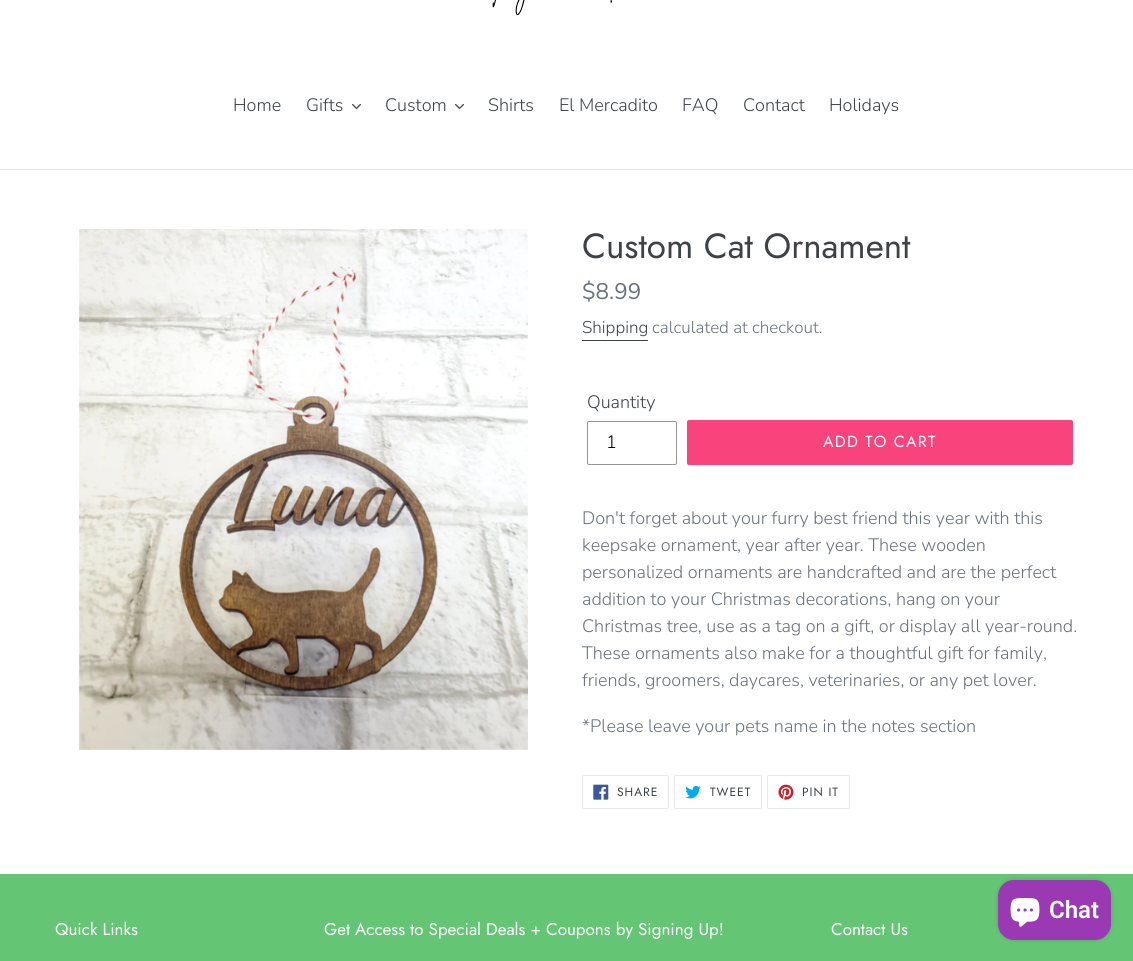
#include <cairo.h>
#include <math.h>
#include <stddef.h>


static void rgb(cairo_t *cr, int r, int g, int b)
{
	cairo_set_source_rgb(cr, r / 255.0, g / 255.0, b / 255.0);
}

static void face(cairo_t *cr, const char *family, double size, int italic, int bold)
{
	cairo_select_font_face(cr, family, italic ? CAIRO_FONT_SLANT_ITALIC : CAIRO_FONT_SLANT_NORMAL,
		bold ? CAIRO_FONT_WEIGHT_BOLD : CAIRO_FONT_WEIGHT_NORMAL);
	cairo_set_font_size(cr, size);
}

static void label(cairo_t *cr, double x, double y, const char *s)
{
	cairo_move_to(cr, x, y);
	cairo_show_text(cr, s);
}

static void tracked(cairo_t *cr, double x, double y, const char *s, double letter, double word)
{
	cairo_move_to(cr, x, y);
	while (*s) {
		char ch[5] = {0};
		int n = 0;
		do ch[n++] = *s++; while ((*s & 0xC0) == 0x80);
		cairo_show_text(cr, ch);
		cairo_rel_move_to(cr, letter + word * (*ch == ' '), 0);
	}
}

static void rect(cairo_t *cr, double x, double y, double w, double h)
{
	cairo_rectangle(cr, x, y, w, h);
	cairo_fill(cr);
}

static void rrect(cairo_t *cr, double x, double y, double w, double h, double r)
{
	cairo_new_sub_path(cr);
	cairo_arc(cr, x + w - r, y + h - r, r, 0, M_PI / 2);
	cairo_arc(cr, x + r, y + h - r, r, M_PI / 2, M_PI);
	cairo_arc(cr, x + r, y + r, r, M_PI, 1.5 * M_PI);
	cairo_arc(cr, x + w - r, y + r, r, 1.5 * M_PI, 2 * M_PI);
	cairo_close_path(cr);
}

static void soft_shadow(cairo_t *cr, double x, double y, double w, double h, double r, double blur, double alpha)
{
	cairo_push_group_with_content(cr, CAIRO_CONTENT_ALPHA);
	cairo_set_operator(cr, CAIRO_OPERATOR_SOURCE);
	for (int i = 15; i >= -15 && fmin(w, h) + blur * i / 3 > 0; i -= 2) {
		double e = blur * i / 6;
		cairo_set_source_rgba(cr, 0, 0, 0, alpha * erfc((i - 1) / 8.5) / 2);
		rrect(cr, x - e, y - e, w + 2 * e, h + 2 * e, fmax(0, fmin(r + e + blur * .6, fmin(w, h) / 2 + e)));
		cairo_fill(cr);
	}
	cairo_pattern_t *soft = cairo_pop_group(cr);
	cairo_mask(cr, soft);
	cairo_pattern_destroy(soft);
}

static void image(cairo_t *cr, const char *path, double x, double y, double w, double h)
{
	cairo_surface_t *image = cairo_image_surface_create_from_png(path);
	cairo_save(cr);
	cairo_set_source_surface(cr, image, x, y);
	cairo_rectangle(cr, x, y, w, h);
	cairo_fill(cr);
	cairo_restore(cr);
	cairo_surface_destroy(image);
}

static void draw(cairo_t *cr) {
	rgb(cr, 255, 255, 255);
	cairo_paint(cr);
	image(cr, "image0.png", 492, 0, 120, 15);
	rgb(cr, 232, 233, 235);
	rect(cr, 0, 169, 1133, 1);
	face(cr, "Nunito Light", 18, 0, 0);
	rgb(cr, 61, 66, 70);
	label(cr, 233, 111, "Home");
	label(cr, 306, 111, "Gifts");
	image(cr, "image1.png", 352, 104, 9, 5);
	label(cr, 385, 111, "Custom");
	image(cr, "image1.png", 455, 104, 9, 5);
	label(cr, 488, 111, "Shirts");
	label(cr, 559, 111, "El Mercadito");
	label(cr, 682, 111, "FAQ");
	label(cr, 743, 111, "Contact");
	label(cr, 829, 111, "Holidays");
	image(cr, "image2.png", 78, 229, 450, 521);
	face(cr, "Jost", 35, 0, 0);
	label(cr, 582, 258, "Custom Cat Ornament");
	face(cr, "Nunito", 22.5, 0, 0);
	rgb(cr, 105, 114, 123);
	label(cr, 582, 299, "$8.99");
	face(cr, "Nunito Light", 17, 0, 0);
	rgb(cr, 61, 66, 70);
	label(cr, 582, 333, "Shipping");
	rect(cr, 582, 340, 66, 1);
	rgb(cr, 105, 114, 123);
	label(cr, 652, 333, "calculated at checkout.");
	face(cr, "Nunito Light", 18, 0, 0);
	rgb(cr, 61, 66, 70);
	label(cr, 587, 408, "Quantity");
	rrect(cr, 587.5, 421.5, 89, 43, 1.5);
	rgb(cr, 148, 148, 148);
	cairo_set_line_width(cr, 1);
	cairo_stroke(cr);
	rgb(cr, 0, 0, 0);
	label(cr, 606, 448, "1");
	rgb(cr, 249, 67, 124);
	rrect(cr, 687, 420, 386, 45, 2);
	cairo_fill(cr);
	face(cr, "Jost", 16, 0, 0);
	rgb(cr, 255, 255, 255);
	tracked(cr, 823, 447, "ADD TO CART", 1.25, 0);
	face(cr, "Nunito Light", 18, 0, 0);
	rgb(cr, 105, 114, 123);
	label(cr, 582, 524, "Don't forget about your furry best friend this year with this");
	label(cr, 582, 551, "keepsake ornament, year after year. These wooden");
	label(cr, 582, 578, "personalized ornaments are handcrafted and are the perfect");
	label(cr, 582, 605, "addition to your Christmas decorations, hang on your");
	label(cr, 582, 632, "Christmas tree, use as a tag on a gift, or display all year-round.");
	label(cr, 582, 659, "These ornaments also make for a thoughtful gift for family,");
	label(cr, 582, 686, "friends, groomers, daycares, veterinaries, or any pet lover.");
	label(cr, 582, 732, "*Please leave your pets name in the notes section");
	rrect(cr, 582.5, 775.5, 86, 33, 1.5);
	rgb(cr, 232, 233, 235);
	cairo_stroke(cr);
	image(cr, "image3.png", 593, 784, 16, 16);
	face(cr, "Jost", 12, 0, 0);
	rgb(cr, 61, 66, 70);
	tracked(cr, 617, 796, "SHARE", 1, 0);
	rrect(cr, 674.5, 775.5, 87, 33, 1.5);
	rgb(cr, 232, 233, 235);
	cairo_stroke(cr);
	image(cr, "image4.png", 685, 785, 16, 14);
	rgb(cr, 61, 66, 70);
	tracked(cr, 710, 796, "TWEET", 1, 0);
	rrect(cr, 767.5, 775.5, 82, 33, 1.5);
	rgb(cr, 232, 233, 235);
	cairo_stroke(cr);
	image(cr, "image5.png", 778, 784, 16, 16);
	rgb(cr, 61, 66, 70);
	tracked(cr, 802, 796, "PIN IT", 1, 0);
	rgb(cr, 100, 198, 117);
	rect(cr, 0, 874, 1133, 87);
	face(cr, "Jost", 17, 0, 0);
	rgb(cr, 255, 255, 255);
	label(cr, 55, 935, "Quick Links");
	label(cr, 324, 935, "Get Access to Special Deals + Coupons by Signing Up!");
	label(cr, 831, 935, "Contact Us");
	rgb(cr, 0, 0, 0);
	soft_shadow(cr, 998, 880, 113, 60, 16, 2.5, 0.15);
	rgb(cr, 154, 57, 179);
	rrect(cr, 998, 880, 113, 60, 16);
	cairo_fill(cr);
	image(cr, "image6.png", 1010, 898, 30, 29);
	face(cr, "Roboto SemiBold", 24, 0, 0);
	rgb(cr, 255, 255, 255);
	label(cr, 1049, 918, "Chat");
}

int main(void) {
	cairo_surface_t *surface = cairo_image_surface_create(CAIRO_FORMAT_RGB24, 1133, 961);
	cairo_t *cr = cairo_create(surface);
	cairo_font_options_t *options = cairo_font_options_create();
	cairo_font_options_set_hint_metrics(options, CAIRO_HINT_METRICS_OFF);
	cairo_font_options_set_hint_style(options, CAIRO_HINT_STYLE_NONE);
	cairo_set_font_options(cr, options);
	cairo_set_miter_limit(cr, 4);
	draw(cr);
	cairo_surface_write_to_png(surface, "render.png");
	cairo_font_options_destroy(options);
	cairo_destroy(cr);
	cairo_surface_destroy(surface);
	return 0;
}
